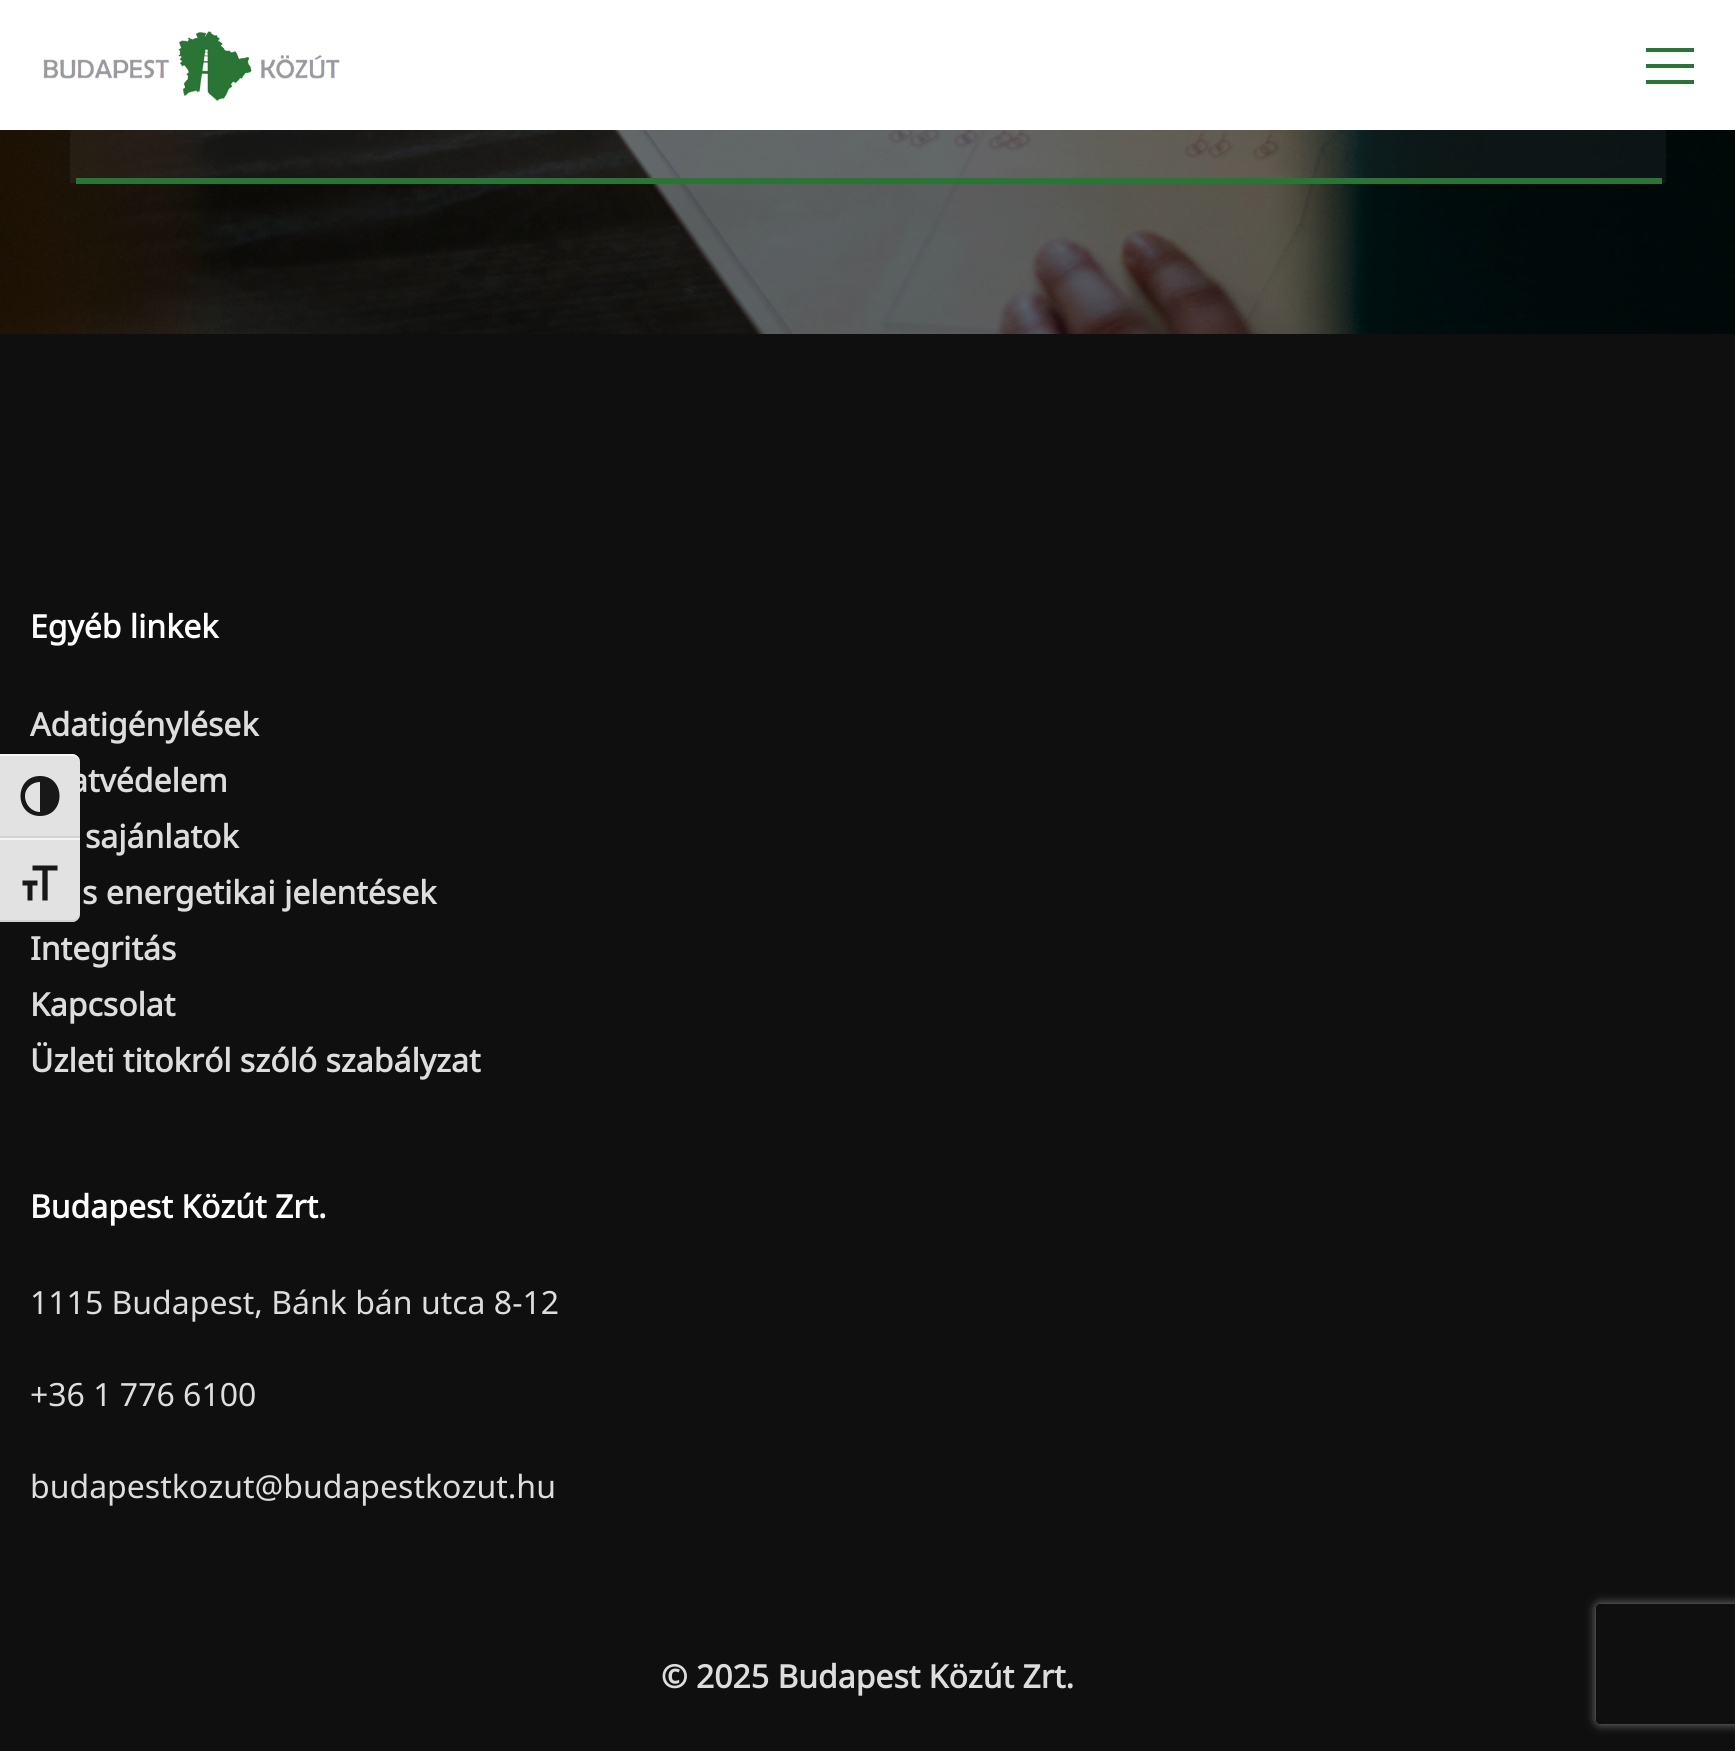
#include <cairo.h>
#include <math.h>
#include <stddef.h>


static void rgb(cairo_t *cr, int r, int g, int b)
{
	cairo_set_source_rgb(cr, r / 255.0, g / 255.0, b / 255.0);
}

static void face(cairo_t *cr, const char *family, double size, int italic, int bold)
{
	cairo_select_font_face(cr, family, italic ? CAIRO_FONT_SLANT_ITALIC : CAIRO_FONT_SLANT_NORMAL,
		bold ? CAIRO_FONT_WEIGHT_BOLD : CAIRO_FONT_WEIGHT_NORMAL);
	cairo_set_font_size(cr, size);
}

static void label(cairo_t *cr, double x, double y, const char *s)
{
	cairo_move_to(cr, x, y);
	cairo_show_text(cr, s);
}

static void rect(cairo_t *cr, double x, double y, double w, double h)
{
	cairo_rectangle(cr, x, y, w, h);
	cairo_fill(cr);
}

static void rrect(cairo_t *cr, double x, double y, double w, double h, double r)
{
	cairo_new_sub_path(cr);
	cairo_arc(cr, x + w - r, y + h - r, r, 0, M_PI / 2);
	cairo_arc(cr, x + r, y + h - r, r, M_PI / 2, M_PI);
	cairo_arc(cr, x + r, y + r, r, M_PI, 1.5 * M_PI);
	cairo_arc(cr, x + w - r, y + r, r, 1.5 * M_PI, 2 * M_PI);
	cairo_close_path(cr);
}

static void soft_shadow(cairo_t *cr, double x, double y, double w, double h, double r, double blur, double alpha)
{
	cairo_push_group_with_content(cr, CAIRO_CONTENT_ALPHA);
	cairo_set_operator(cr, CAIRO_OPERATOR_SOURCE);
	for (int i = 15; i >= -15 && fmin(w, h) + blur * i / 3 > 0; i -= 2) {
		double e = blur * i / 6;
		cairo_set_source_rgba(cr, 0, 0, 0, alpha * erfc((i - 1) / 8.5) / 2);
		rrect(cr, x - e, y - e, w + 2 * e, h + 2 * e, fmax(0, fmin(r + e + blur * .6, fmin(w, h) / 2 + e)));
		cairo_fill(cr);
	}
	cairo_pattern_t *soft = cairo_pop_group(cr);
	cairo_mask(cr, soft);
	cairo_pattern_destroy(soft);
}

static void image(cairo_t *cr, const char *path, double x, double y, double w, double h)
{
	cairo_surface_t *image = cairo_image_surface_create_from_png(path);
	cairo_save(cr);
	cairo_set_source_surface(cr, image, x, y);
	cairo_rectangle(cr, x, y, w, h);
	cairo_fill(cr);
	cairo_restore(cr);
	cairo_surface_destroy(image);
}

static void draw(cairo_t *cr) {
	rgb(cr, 15, 15, 15);
	cairo_paint(cr);
	rgb(cr, 255, 255, 255);
	rect(cr, 0, 0, 1735, 130);
	image(cr, "image0.png", 43, 31, 297, 71);
	rgb(cr, 42, 117, 53);
	rect(cr, 1646, 80, 48, 4);
	rect(cr, 1646, 48, 48, 4);
	rect(cr, 1646, 64, 48, 4);
	image(cr, "image1.png", 0, 130, 1735, 204);
	cairo_set_source_rgba(cr, 1, 1, 1, 0.05);
	rect(cr, 70, 130, 1596, 53);
	rgb(cr, 42, 117, 53);
	rect(cr, 76, 178, 1586, 6);
	face(cr, "Noto Sans", 32, 0, 1);
	rgb(cr, 255, 255, 255);
	label(cr, 30, 638, "Egyéb linkek");
	rgb(cr, 221, 221, 221);
	label(cr, 30, 736, "Adatigénylések");
	label(cr, 70, 792, "atvédelem");
	label(cr, 85, 848, "sajánlatok");
	label(cr, 82, 904, "s energetikai jelentések");
	label(cr, 30, 960, "Integritás");
	label(cr, 30, 1016, "Kapcsolat");
	label(cr, 30, 1072, "Üzleti titokról szóló szabályzat");
	rgb(cr, 255, 255, 255);
	label(cr, 30, 1218, "Budapest Közút Zrt.");
	face(cr, "Noto Sans", 32, 0, 0);
	rgb(cr, 221, 221, 221);
	label(cr, 30, 1314, "1115 Budapest, Bánk bán utca 8-12");
	label(cr, 30, 1406, "+36 1 776 6100");
	label(cr, 30, 1498, "budapestkozut@budapestkozut.hu");
	face(cr, "Noto Sans", 32, 0, 1);
	label(cr, 661, 1688, "© 2025 Budapest Közút Zrt.");
	rgb(cr, 226, 226, 226);
	cairo_new_path(cr);
	cairo_move_to(cr, 0, 754);
	cairo_line_to(cr, 72, 754);
	cairo_curve_to(cr, 76.5, 754, 80, 757.5, 80, 762);
	cairo_line_to(cr, 80, 838);
	cairo_line_to(cr, 0, 838);
	cairo_close_path(cr);
	cairo_fill(cr);
	rgb(cr, 245, 245, 245);
	cairo_new_path(cr);
	cairo_move_to(cr, 0, 754);
	cairo_line_to(cr, 0, 756);
	cairo_line_to(cr, 72, 756);
	cairo_curve_to(cr, 76, 756, 80, 759, 80, 762);
	cairo_curve_to(cr, 80, 758, 76, 754, 72, 754);
	cairo_close_path(cr);
	cairo_fill(cr);
	rgb(cr, 210, 210, 210);
	rect(cr, 0, 836, 80, 2);
	rgb(cr, 24, 24, 24);
	cairo_new_path(cr);
	cairo_move_to(cr, 40, 776);
	cairo_curve_to(cr, 14, 776, 14, 816, 40, 816);
	cairo_curve_to(cr, 66, 816, 66, 776, 40, 776);
	cairo_close_path(cr);
	cairo_move_to(cr, 25, 796);
	cairo_curve_to(cr, 25, 788, 32, 782, 40, 782);
	cairo_line_to(cr, 40, 812);
	cairo_curve_to(cr, 32, 812, 25, 805, 25, 796);
	cairo_close_path(cr);
	cairo_fill(cr);
	rgb(cr, 226, 226, 226);
	cairo_new_path(cr);
	cairo_move_to(cr, 0, 838);
	cairo_line_to(cr, 80, 838);
	cairo_line_to(cr, 80, 914);
	cairo_curve_to(cr, 80, 918.5, 76.5, 922, 72, 922);
	cairo_line_to(cr, 0, 922);
	cairo_close_path(cr);
	cairo_fill(cr);
	rgb(cr, 245, 245, 245);
	rect(cr, 0, 838, 80, 2);
	rgb(cr, 210, 210, 210);
	cairo_new_path(cr);
	cairo_move_to(cr, 0, 920);
	cairo_line_to(cr, 0, 922);
	cairo_line_to(cr, 72, 922);
	cairo_curve_to(cr, 76, 922, 80, 918, 80, 914);
	cairo_curve_to(cr, 80, 917, 76, 920, 72, 920);
	cairo_close_path(cr);
	cairo_fill(cr);
	image(cr, "image2.png", 22, 865, 36, 36);
	cairo_save(cr);
	cairo_set_fill_rule(cr, CAIRO_FILL_RULE_EVEN_ODD);
	cairo_new_path(cr);
	cairo_move_to(cr, 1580, 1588);
	cairo_line_to(cr, 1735, 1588);
	cairo_line_to(cr, 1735, 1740);
	cairo_line_to(cr, 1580, 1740);
	cairo_close_path(cr);
	cairo_move_to(cr, 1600, 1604);
	cairo_line_to(cr, 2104, 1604);
	cairo_curve_to(cr, 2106, 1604, 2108, 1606, 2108, 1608);
	cairo_line_to(cr, 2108, 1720);
	cairo_curve_to(cr, 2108, 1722, 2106, 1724, 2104, 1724);
	cairo_line_to(cr, 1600, 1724);
	cairo_curve_to(cr, 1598, 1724, 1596, 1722, 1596, 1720);
	cairo_line_to(cr, 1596, 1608);
	cairo_curve_to(cr, 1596, 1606, 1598, 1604, 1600, 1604);
	cairo_close_path(cr);
	cairo_clip(cr);
	rgb(cr, 128, 128, 128);
	soft_shadow(cr, 1596, 1604, 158, 120, 4, 5, 1);
	cairo_restore(cr);
}

int main(void) {
	cairo_surface_t *surface = cairo_image_surface_create(CAIRO_FORMAT_RGB24, 1735, 1751);
	cairo_t *cr = cairo_create(surface);
	cairo_font_options_t *options = cairo_font_options_create();
	cairo_font_options_set_hint_metrics(options, CAIRO_HINT_METRICS_OFF);
	cairo_font_options_set_hint_style(options, CAIRO_HINT_STYLE_NONE);
	cairo_set_font_options(cr, options);
	cairo_set_miter_limit(cr, 4);
	draw(cr);
	cairo_surface_write_to_png(surface, "render.png");
	cairo_font_options_destroy(options);
	cairo_destroy(cr);
	cairo_surface_destroy(surface);
	return 0;
}
